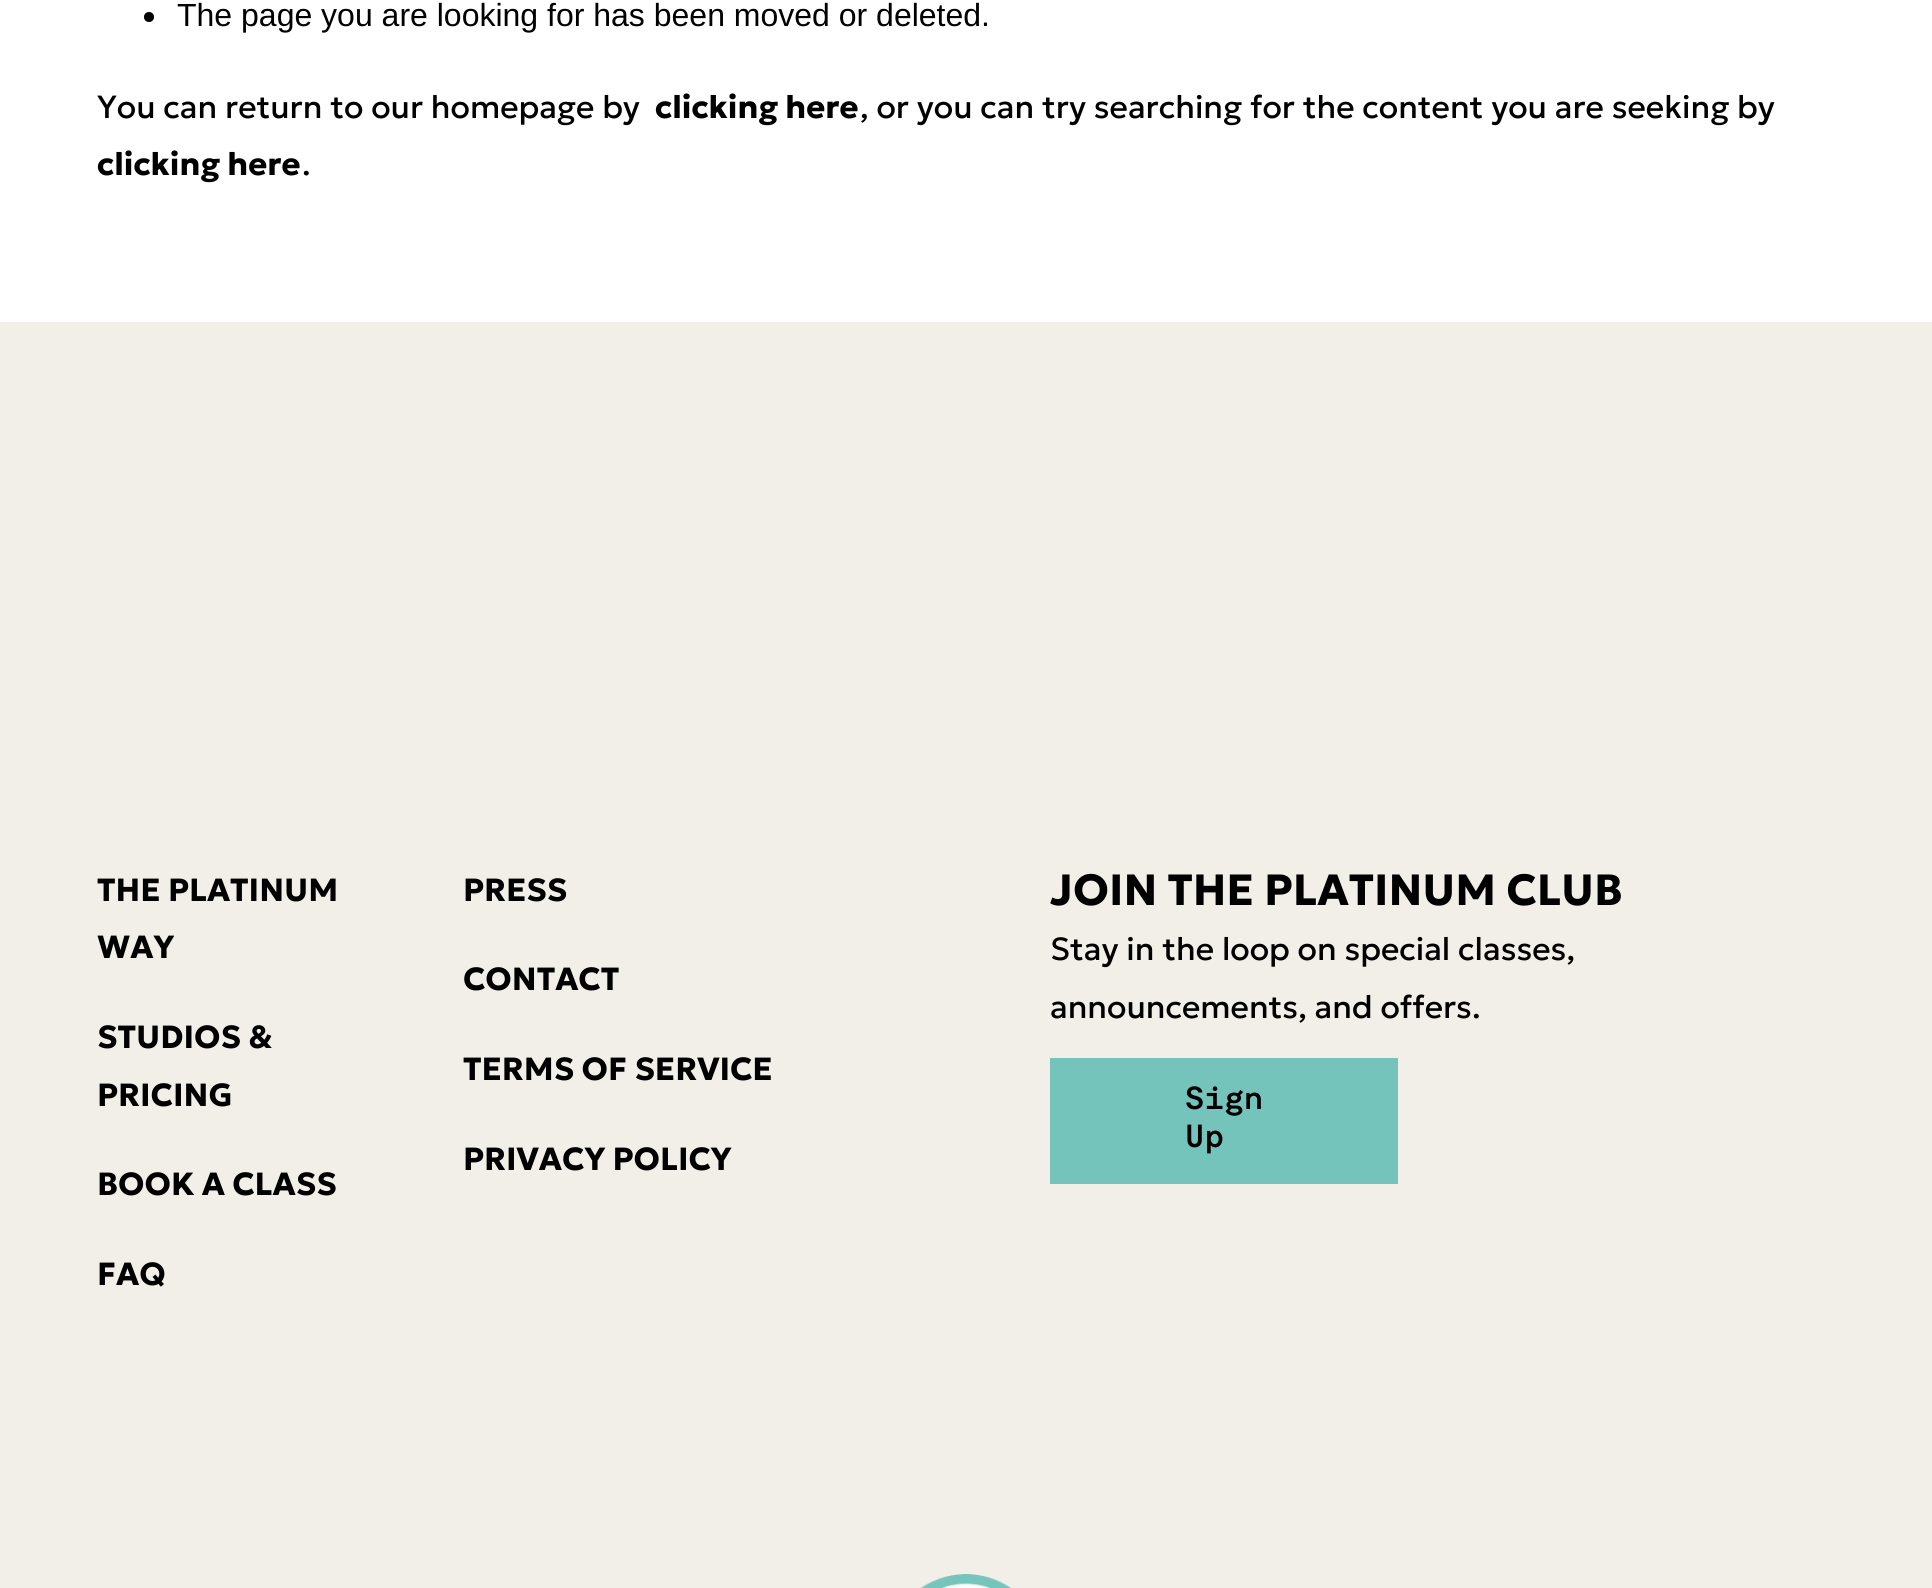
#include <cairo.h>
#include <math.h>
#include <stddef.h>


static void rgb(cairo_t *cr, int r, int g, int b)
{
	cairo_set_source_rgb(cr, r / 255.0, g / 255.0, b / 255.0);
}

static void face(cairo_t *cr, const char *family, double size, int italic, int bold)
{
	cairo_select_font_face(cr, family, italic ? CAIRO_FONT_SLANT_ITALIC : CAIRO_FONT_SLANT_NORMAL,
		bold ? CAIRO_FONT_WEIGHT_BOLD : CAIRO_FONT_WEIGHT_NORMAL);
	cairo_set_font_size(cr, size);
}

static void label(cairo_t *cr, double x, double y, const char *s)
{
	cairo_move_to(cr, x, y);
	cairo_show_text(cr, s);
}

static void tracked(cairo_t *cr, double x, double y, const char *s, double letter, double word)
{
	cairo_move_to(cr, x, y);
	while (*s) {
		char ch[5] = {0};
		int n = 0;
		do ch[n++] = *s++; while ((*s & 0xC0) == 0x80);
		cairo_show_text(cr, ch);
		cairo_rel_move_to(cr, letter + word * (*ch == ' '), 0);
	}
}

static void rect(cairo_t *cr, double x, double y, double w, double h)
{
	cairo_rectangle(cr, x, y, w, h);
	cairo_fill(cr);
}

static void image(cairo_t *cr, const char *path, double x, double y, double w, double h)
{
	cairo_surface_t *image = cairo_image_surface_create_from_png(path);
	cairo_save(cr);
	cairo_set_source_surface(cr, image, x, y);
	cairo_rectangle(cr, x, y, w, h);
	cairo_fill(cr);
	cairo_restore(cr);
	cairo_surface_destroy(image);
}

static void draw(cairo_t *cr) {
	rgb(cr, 255, 255, 255);
	cairo_paint(cr);
	rgb(cr, 0, 0, 0);
	cairo_arc(cr, 149, 17, 5, 0, 2 * M_PI);
	cairo_fill(cr);
	face(cr, "Liberation Sans", 32, 0, 0);
	label(cr, 177, 26, "The page you are looking for has been moved or deleted.");
	face(cr, "Geologica", 32, 0, 0);
	label(cr, 97, 118, "You can return to our homepage by");
	face(cr, "Geologica", 32, 0, 1);
	label(cr, 655, 118, "clicking here");
	face(cr, "Geologica", 32, 0, 0);
	label(cr, 860, 118, ", or you can try searching for the content you are seeking by");
	face(cr, "Geologica", 32, 0, 1);
	label(cr, 97, 175, "clicking here");
	face(cr, "Geologica", 32, 0, 0);
	label(cr, 302, 175, ".");
	rgb(cr, 242, 239, 232);
	rect(cr, 0, 322, 1932, 1266);
	face(cr, "Geologica", 32, 0, 1);
	rgb(cr, 0, 0, 0);
	label(cr, 97, 901, "THE PLATINUM");
	label(cr, 97, 958, "WAY");
	label(cr, 97, 1048, "STUDIOS &");
	label(cr, 97, 1106, "PRICING");
	label(cr, 97, 1195, "BOOK A CLASS");
	label(cr, 97, 1285, "FAQ");
	label(cr, 463, 901, "PRESS");
	label(cr, 463, 990, "CONTACT");
	label(cr, 463, 1080, "TERMS OF SERVICE");
	label(cr, 463, 1170, "PRIVACY POLICY");
	face(cr, "Geologica", 43.6, 0, 1);
	label(cr, 1050, 905, "JOIN THE PLATINUM CLUB");
	face(cr, "Geologica", 32, 0, 0);
	label(cr, 1050, 960, "Stay in the loop on special classes,");
	label(cr, 1050, 1018, "announcements, and offers.");
	rgb(cr, 117, 196, 188);
	rect(cr, 1050, 1058, 348, 126);
	face(cr, "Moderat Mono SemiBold", 32, 0, 0);
	rgb(cr, 0, 0, 0);
	tracked(cr, 1185, 1109, "Sign", 0.5, 0);
	tracked(cr, 1185, 1147, "Up", 0.5, 0);
	image(cr, "image0.png", 920, 1574, 92, 14);
}

int main(void) {
	cairo_surface_t *surface = cairo_image_surface_create(CAIRO_FORMAT_RGB24, 1932, 1588);
	cairo_t *cr = cairo_create(surface);
	cairo_font_options_t *options = cairo_font_options_create();
	cairo_font_options_set_hint_metrics(options, CAIRO_HINT_METRICS_OFF);
	cairo_font_options_set_hint_style(options, CAIRO_HINT_STYLE_NONE);
	cairo_set_font_options(cr, options);
	cairo_set_miter_limit(cr, 4);
	draw(cr);
	cairo_surface_write_to_png(surface, "render.png");
	cairo_font_options_destroy(options);
	cairo_destroy(cr);
	cairo_surface_destroy(surface);
	return 0;
}
